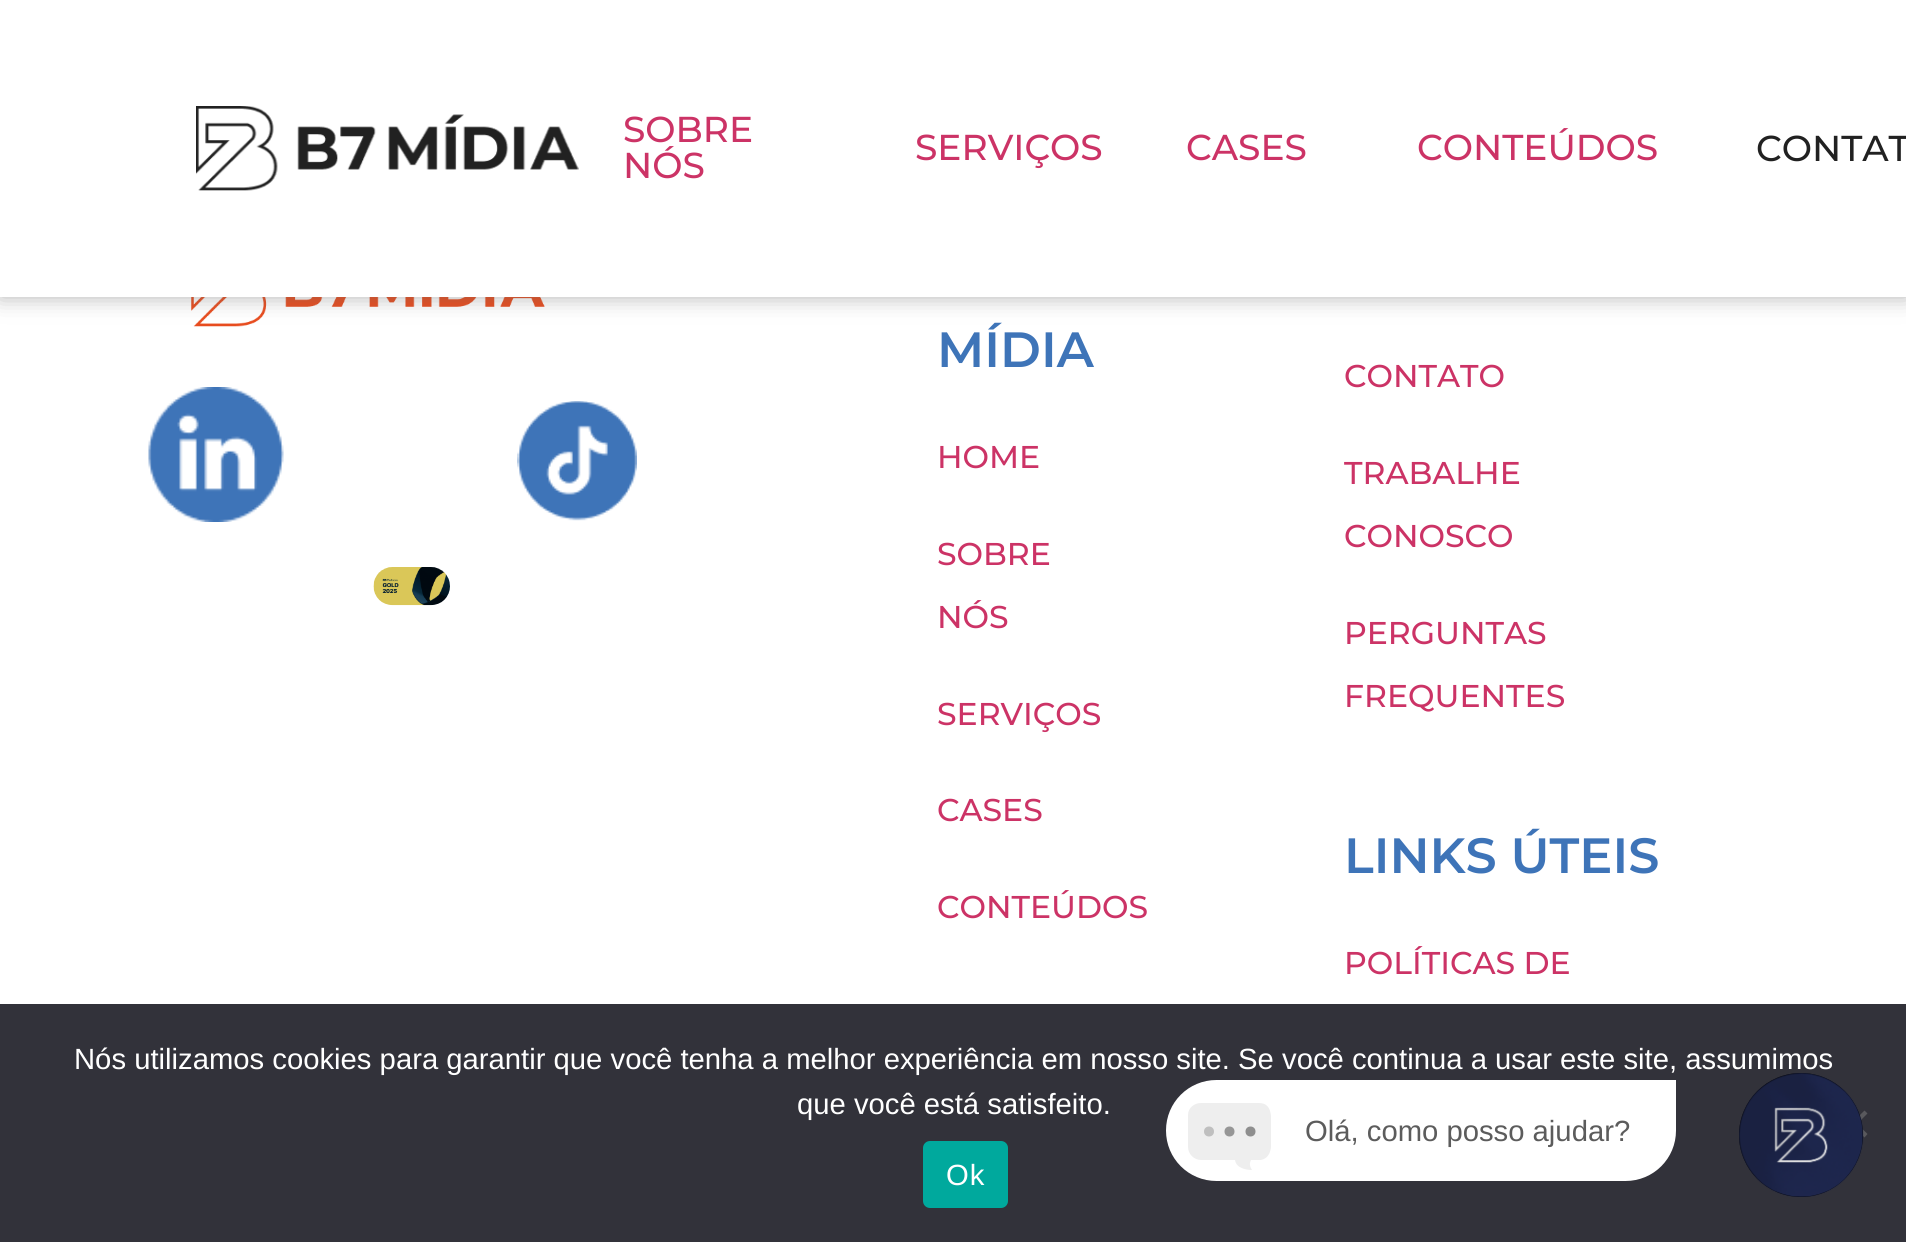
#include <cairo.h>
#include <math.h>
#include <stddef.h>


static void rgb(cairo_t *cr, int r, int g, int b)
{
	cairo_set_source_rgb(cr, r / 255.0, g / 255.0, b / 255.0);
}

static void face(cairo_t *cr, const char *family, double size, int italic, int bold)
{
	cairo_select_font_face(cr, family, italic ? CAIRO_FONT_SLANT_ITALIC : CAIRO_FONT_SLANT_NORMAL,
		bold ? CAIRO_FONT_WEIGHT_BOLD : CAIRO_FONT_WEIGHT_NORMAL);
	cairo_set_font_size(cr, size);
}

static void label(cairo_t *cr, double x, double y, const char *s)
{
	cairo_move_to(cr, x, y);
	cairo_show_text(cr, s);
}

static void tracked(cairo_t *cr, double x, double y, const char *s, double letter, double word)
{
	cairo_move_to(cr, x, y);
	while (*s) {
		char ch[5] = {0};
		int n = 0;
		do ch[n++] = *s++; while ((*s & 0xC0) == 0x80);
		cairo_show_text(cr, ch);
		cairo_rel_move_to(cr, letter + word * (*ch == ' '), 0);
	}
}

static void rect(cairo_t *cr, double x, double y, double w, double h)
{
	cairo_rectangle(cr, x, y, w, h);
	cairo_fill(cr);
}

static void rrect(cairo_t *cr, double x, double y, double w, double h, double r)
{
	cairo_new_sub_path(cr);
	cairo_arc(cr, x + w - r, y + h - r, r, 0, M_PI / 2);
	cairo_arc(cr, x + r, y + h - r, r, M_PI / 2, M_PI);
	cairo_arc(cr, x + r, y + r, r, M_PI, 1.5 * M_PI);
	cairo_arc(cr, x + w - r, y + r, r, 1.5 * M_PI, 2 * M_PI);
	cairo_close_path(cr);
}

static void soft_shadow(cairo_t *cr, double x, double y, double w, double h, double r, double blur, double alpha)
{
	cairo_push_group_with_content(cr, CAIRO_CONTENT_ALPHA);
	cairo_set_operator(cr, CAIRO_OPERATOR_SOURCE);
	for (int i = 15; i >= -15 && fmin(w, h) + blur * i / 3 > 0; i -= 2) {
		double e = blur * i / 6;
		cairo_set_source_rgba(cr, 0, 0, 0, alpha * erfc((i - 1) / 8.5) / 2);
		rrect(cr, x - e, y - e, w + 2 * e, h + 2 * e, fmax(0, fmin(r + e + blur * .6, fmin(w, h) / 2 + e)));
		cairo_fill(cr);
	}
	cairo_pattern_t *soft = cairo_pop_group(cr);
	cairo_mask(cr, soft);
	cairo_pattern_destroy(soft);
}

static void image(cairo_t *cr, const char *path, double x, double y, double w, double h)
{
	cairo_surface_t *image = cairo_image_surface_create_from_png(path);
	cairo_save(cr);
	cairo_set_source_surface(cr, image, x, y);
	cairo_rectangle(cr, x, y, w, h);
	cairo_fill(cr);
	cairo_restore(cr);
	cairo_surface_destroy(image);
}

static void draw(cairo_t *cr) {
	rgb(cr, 255, 255, 255);
	cairo_paint(cr);
	image(cr, "image1.png", 191, 297, 354, 30);
	rgb(cr, 104, 104, 104);
	soft_shadow(cr, 0, 0, 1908, 297, 0, 11, 0.5);
	rgb(cr, 255, 255, 255);
	rect(cr, 0, 0, 1906, 297);
	image(cr, "image0.png", 196, 106, 383, 85);
	face(cr, "Montserrat Medium", 36, 0, 0);
	rgb(cr, 204, 51, 102);
	label(cr, 623, 142, "SOBRE");
	label(cr, 623, 178, "NÓS");
	label(cr, 915, 160, "SERVIÇOS");
	label(cr, 1186, 160, "CASES");
	label(cr, 1417, 160, "CONTEÚDOS");
	rgb(cr, 33, 33, 33);
	label(cr, 1756, 161, "CONTAT");
	image(cr, "image2.png", 148, 387, 136, 135);
	image(cr, "image3.png", 517, 401, 120, 120);
	image(cr, "image4.png", 373, 567, 77, 39);
	face(cr, "Montserrat SemiBold", 49.5, 0, 0);
	rgb(cr, 62, 116, 184);
	label(cr, 937, 367, "MÍDIA");
	face(cr, "Montserrat Medium", 31.5, 0, 0);
	rgb(cr, 204, 51, 102);
	label(cr, 937, 468, "HOME");
	label(cr, 937, 565, "SOBRE");
	label(cr, 937, 628, "NÓS");
	label(cr, 937, 725, "SERVIÇOS");
	label(cr, 937, 821, "CASES");
	label(cr, 937, 918, "CONTEÚDOS");
	label(cr, 1344, 387, "CONTATO");
	label(cr, 1344, 484, "TRABALHE");
	label(cr, 1344, 547, "CONOSCO");
	label(cr, 1344, 644, "PERGUNTAS");
	label(cr, 1344, 707, "FREQUENTES");
	face(cr, "Montserrat SemiBold", 49.5, 0, 0);
	rgb(cr, 62, 116, 184);
	label(cr, 1344, 873, "LINKS ÚTEIS");
	face(cr, "Montserrat Medium", 31.5, 0, 0);
	rgb(cr, 204, 51, 102);
	label(cr, 1344, 974, "POLÍTICAS DE");
	rgb(cr, 50, 50, 58);
	rect(cr, 0, 1004, 1906, 238);
	face(cr, "Liberation Sans", 29.25, 0, 0);
	rgb(cr, 255, 255, 255);
	label(cr, 74, 1069, "Nós utilizamos cookies para garantir que você tenha a melhor experiência em nosso site. Se você continua a usar este site, assumimos");
	label(cr, 797, 1114, "que você está satisfeito.");
	rgb(cr, 89, 89, 93);
	cairo_new_path(cr);
	cairo_move_to(cr, 1864.5, 1110.5);
	cairo_line_to(cr, 1867.5, 1113.5);
	cairo_line_to(cr, 1843.5, 1137.5);
	cairo_line_to(cr, 1840.5, 1134);
	cairo_close_path(cr);
	cairo_fill(cr);
	cairo_new_path(cr);
	cairo_move_to(cr, 1840.5, 1113.5);
	cairo_line_to(cr, 1843.5, 1110.5);
	cairo_line_to(cr, 1867.5, 1134);
	cairo_line_to(cr, 1864.5, 1137.5);
	cairo_close_path(cr);
	cairo_fill(cr);
	rgb(cr, 0, 169, 157);
	rrect(cr, 923, 1141, 85, 67, 7);
	cairo_fill(cr);
	rgb(cr, 255, 255, 255);
	tracked(cr, 946, 1185, "Ok", 1, 0);
	cairo_new_path(cr);
	cairo_move_to(cr, 1216.5, 1080);
	cairo_line_to(cr, 1676, 1080);
	cairo_line_to(cr, 1676, 1130.5);
	cairo_curve_to(cr, 1676, 1158.5, 1653.5, 1181, 1625.5, 1181);
	cairo_line_to(cr, 1216.5, 1181);
	cairo_curve_to(cr, 1188.5, 1181, 1166, 1158.5, 1166, 1130.5);
	cairo_curve_to(cr, 1166, 1102.5, 1188.5, 1080, 1216.5, 1080);
	cairo_close_path(cr);
	cairo_fill(cr);
	cairo_save(cr);
	cairo_rectangle(cr, 1188, 1103, 83, 67);
	cairo_clip(cr);
	rgb(cr, 238, 238, 238);
	cairo_new_path(cr);
	cairo_move_to(cr, 1259, 1103);
	cairo_line_to(cr, 1201, 1103);
	cairo_curve_to(cr, 1194, 1103, 1188, 1108, 1188, 1115);
	cairo_line_to(cr, 1188, 1147);
	cairo_curve_to(cr, 1188, 1154, 1194, 1160, 1201, 1160);
	cairo_line_to(cr, 1235, 1160);
	cairo_curve_to(cr, 1236, 1168, 1246, 1170, 1252, 1170);
	cairo_curve_to(cr, 1250, 1167, 1249, 1164, 1251, 1160);
	cairo_line_to(cr, 1261, 1160);
	cairo_curve_to(cr, 1274, 1157, 1271, 1141, 1271, 1131);
	cairo_curve_to(cr, 1271, 1121, 1274, 1103, 1259, 1103);
	cairo_close_path(cr);
	cairo_fill(cr);
	cairo_restore(cr);
	rgb(cr, 191, 191, 191);
	cairo_arc(cr, 1209, 1131.5, 5, 0, 2 * M_PI);
	cairo_fill(cr);
	rgb(cr, 150, 150, 150);
	cairo_arc(cr, 1229.5, 1131.5, 5, 0, 2 * M_PI);
	cairo_fill(cr);
	rgb(cr, 142, 142, 142);
	cairo_arc(cr, 1250.5, 1131.5, 5, 0, 2 * M_PI);
	cairo_fill(cr);
	rgb(cr, 92, 92, 92);
	label(cr, 1305, 1141, "Olá, como posso ajudar?");
	rgb(cr, 0, 0, 0);
	cairo_new_path(cr);
	cairo_arc(cr, 1801, 1135, 62, 0, 2 * M_PI);
	cairo_fill(cr);
	image(cr, "image5.png", 1739, 1073, 125, 124);
}

int main(void) {
	cairo_surface_t *surface = cairo_image_surface_create(CAIRO_FORMAT_RGB24, 1906, 1242);
	cairo_t *cr = cairo_create(surface);
	cairo_font_options_t *options = cairo_font_options_create();
	cairo_font_options_set_hint_metrics(options, CAIRO_HINT_METRICS_OFF);
	cairo_font_options_set_hint_style(options, CAIRO_HINT_STYLE_NONE);
	cairo_set_font_options(cr, options);
	cairo_set_miter_limit(cr, 4);
	draw(cr);
	cairo_surface_write_to_png(surface, "render.png");
	cairo_font_options_destroy(options);
	cairo_destroy(cr);
	cairo_surface_destroy(surface);
	return 0;
}
